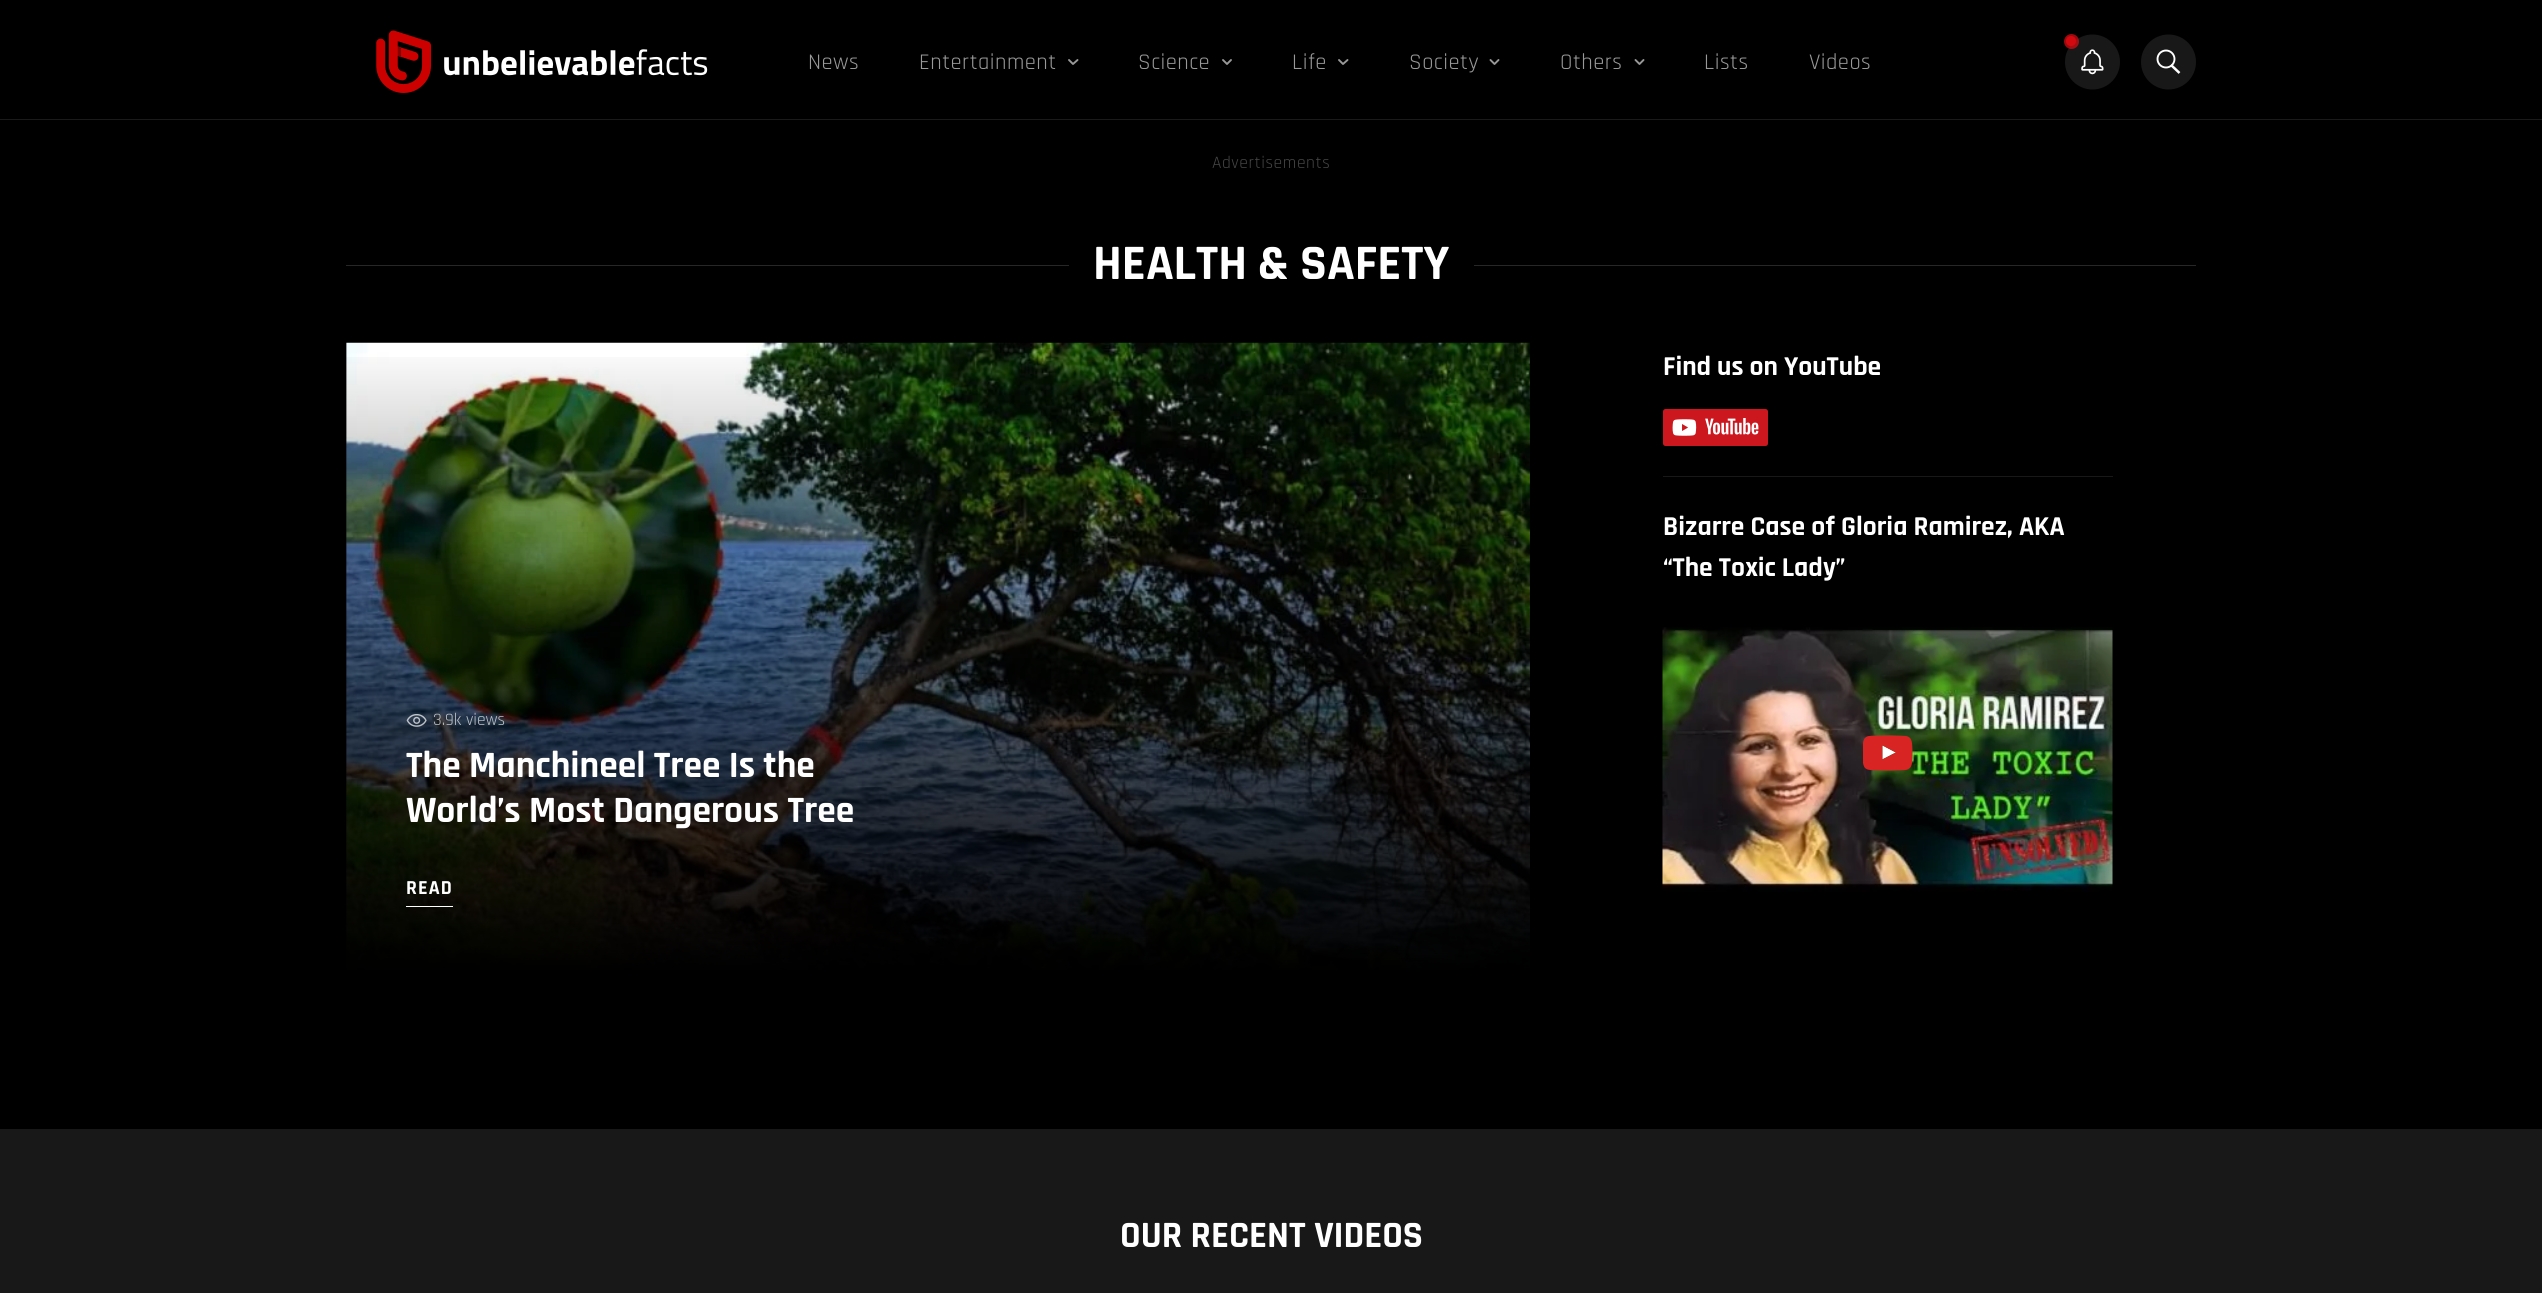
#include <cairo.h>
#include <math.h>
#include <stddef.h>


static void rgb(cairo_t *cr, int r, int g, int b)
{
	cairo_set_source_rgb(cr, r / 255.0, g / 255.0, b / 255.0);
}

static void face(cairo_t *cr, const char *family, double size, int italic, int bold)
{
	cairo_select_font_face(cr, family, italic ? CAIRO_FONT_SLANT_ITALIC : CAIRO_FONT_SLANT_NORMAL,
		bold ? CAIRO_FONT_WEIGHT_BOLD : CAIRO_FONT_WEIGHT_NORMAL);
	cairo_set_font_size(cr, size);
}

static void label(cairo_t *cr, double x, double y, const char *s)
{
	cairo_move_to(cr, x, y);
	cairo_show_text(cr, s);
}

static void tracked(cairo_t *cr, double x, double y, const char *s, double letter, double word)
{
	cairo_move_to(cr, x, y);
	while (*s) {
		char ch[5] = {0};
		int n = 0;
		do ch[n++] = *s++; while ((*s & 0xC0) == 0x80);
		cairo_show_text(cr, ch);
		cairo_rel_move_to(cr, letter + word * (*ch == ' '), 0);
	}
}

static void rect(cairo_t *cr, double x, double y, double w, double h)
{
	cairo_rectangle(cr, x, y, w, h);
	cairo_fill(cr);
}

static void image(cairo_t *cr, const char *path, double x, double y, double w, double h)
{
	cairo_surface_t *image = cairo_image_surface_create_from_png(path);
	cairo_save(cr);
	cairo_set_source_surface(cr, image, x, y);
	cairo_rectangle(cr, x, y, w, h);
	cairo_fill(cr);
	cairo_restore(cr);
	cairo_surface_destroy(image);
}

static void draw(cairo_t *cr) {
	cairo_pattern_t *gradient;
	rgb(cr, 0, 0, 0);
	cairo_paint(cr);
	rgb(cr, 26, 26, 26);
	rect(cr, 0, 119, 2542, 1);
	image(cr, "image0.png", 376, 30, 332, 63);
	face(cr, "Rajdhani", 22.5, 0, 0);
	rgb(cr, 153, 153, 153);
	tracked(cr, 808, 69, "News", 0.5, 0);
	tracked(cr, 919, 69, "Entertainment", 0.5, 0);
	cairo_new_path(cr);
	cairo_move_to(cr, 1069, 60);
	cairo_line_to(cr, 1073, 64);
	cairo_line_to(cr, 1077.5, 60);
	cairo_set_line_width(cr, 1.9);
	cairo_set_line_cap(cr, CAIRO_LINE_CAP_ROUND);
	cairo_set_line_join(cr, CAIRO_LINE_JOIN_ROUND);
	cairo_stroke(cr);
	tracked(cr, 1138, 69, "Science", 0.5, 0);
	cairo_new_path(cr);
	cairo_move_to(cr, 1223, 60);
	cairo_line_to(cr, 1227, 64);
	cairo_line_to(cr, 1231, 60);
	cairo_stroke(cr);
	tracked(cr, 1292, 69, "Life", 0.5, 0);
	cairo_new_path(cr);
	cairo_move_to(cr, 1339, 60);
	cairo_line_to(cr, 1343, 64);
	cairo_line_to(cr, 1347.5, 60);
	cairo_stroke(cr);
	tracked(cr, 1409, 69, "Society", 0.5, 0);
	cairo_new_path(cr);
	cairo_move_to(cr, 1490.5, 60);
	cairo_line_to(cr, 1494.5, 64);
	cairo_line_to(cr, 1498.5, 60);
	cairo_stroke(cr);
	tracked(cr, 1560, 69, "Others", 0.5, 0);
	cairo_new_path(cr);
	cairo_move_to(cr, 1635.5, 60);
	cairo_line_to(cr, 1639.5, 64);
	cairo_line_to(cr, 1643.5, 60);
	cairo_stroke(cr);
	tracked(cr, 1704, 69, "Lists", 0.5, 0);
	tracked(cr, 1809, 69, "Videos", 0.5, 0);
	image(cr, "image1.png", 2065, 34, 55, 56);
	cairo_set_source_rgba(cr, 0.824, 0.039, 0.063, 0.75);
	cairo_arc(cr, 2071.5, 41.5, 7.5, 0, 2 * M_PI);
	cairo_fill(cr);
	rgb(cr, 210, 10, 16);
	cairo_arc(cr, 2071, 41, 5, 0, 2 * M_PI);
	cairo_fill(cr);
	rgb(cr, 24, 24, 24);
	cairo_arc(cr, 2168.5, 62, 27.5, 0, 2 * M_PI);
	cairo_fill(cr);
	cairo_new_path(cr);
	cairo_move_to(cr, 2171, 65);
	cairo_line_to(cr, 2179.5, 73);
	rgb(cr, 255, 255, 255);
	cairo_set_line_width(cr, 2.5);
	cairo_set_line_cap(cr, CAIRO_LINE_CAP_BUTT);
	cairo_set_line_join(cr, CAIRO_LINE_JOIN_MITER);
	cairo_stroke(cr);
	cairo_arc(cr, 2166, 59, 8.5, 0, 2 * M_PI);
	cairo_set_line_width(cr, 1.9);
	cairo_stroke(cr);
	face(cr, "Rajdhani", 17.5, 0, 0);
	rgb(cr, 69, 69, 69);
	tracked(cr, 1212, 168, "Advertisements", 0.6, 0);
	rgb(cr, 39, 39, 39);
	rect(cr, 346, 265, 1850, 1);
	rgb(cr, 0, 0, 0);
	rect(cr, 1069, 265, 405, 1);
	face(cr, "Rajdhani", 50, 0, 1);
	rgb(cr, 255, 255, 255);
	label(cr, 1093, 279, "HEALTH & SAFETY");
	face(cr, "Rajdhani", 27.5, 0, 1);
	label(cr, 1663, 375, "Find us on YouTube");
	image(cr, "image2.png", 1663, 409, 105, 37);
	rgb(cr, 24, 24, 24);
	rect(cr, 1663, 476, 450, 1);
	rgb(cr, 255, 255, 255);
	label(cr, 1663, 535, "Bizarre Case of Gloria Ramirez, AKA");
	label(cr, 1663, 576, "“The Toxic Lady”");
	image(cr, "image3.png", 1662, 627, 451, 265);
	image(cr, "image4.png", 1863, 735, 50, 36);
	rgb(cr, 24, 24, 24);
	rect(cr, 346, 343, 1, 627);
	image(cr, "image5.png", 346, 342, 1184, 628);
	gradient = cairo_pattern_create_linear(938, 974, 938, 343);
	cairo_pattern_add_color_stop_rgba(gradient, 0, 0, 0, 0, 1);
	cairo_pattern_add_color_stop_rgba(gradient, 1, 0, 0, 0, 0);
	cairo_set_source(cr, gradient);
	cairo_pattern_destroy(gradient);
	rect(cr, 346, 357, 1184, 613);
	image(cr, "image6.png", 406, 714, 21, 13);
	face(cr, "Rajdhani", 17.5, 0, 0);
	rgb(cr, 190, 194, 199);
	label(cr, 433, 725, "3.9k views");
	face(cr, "Rajdhani", 37.5, 0, 1);
	rgb(cr, 255, 255, 255);
	label(cr, 406, 777, "The Manchineel Tree Is the");
	label(cr, 406, 822, "World’s Most Dangerous Tree");
	face(cr, "Rajdhani", 20, 0, 1);
	tracked(cr, 406, 894, "READ", 1, 0);
	rect(cr, 406, 906, 47, 1);
	rgb(cr, 24, 24, 24);
	rect(cr, 0, 1129, 2542, 164);
	face(cr, "Rajdhani", 37.5, 0, 1);
	rgb(cr, 255, 255, 255);
	label(cr, 1120, 1247, "OUR RECENT VIDEOS");
}

int main(void) {
	cairo_surface_t *surface = cairo_image_surface_create(CAIRO_FORMAT_RGB24, 2542, 1293);
	cairo_t *cr = cairo_create(surface);
	cairo_font_options_t *options = cairo_font_options_create();
	cairo_font_options_set_hint_metrics(options, CAIRO_HINT_METRICS_OFF);
	cairo_font_options_set_hint_style(options, CAIRO_HINT_STYLE_NONE);
	cairo_set_font_options(cr, options);
	cairo_set_miter_limit(cr, 4);
	draw(cr);
	cairo_surface_write_to_png(surface, "render.png");
	cairo_font_options_destroy(options);
	cairo_destroy(cr);
	cairo_surface_destroy(surface);
	return 0;
}
